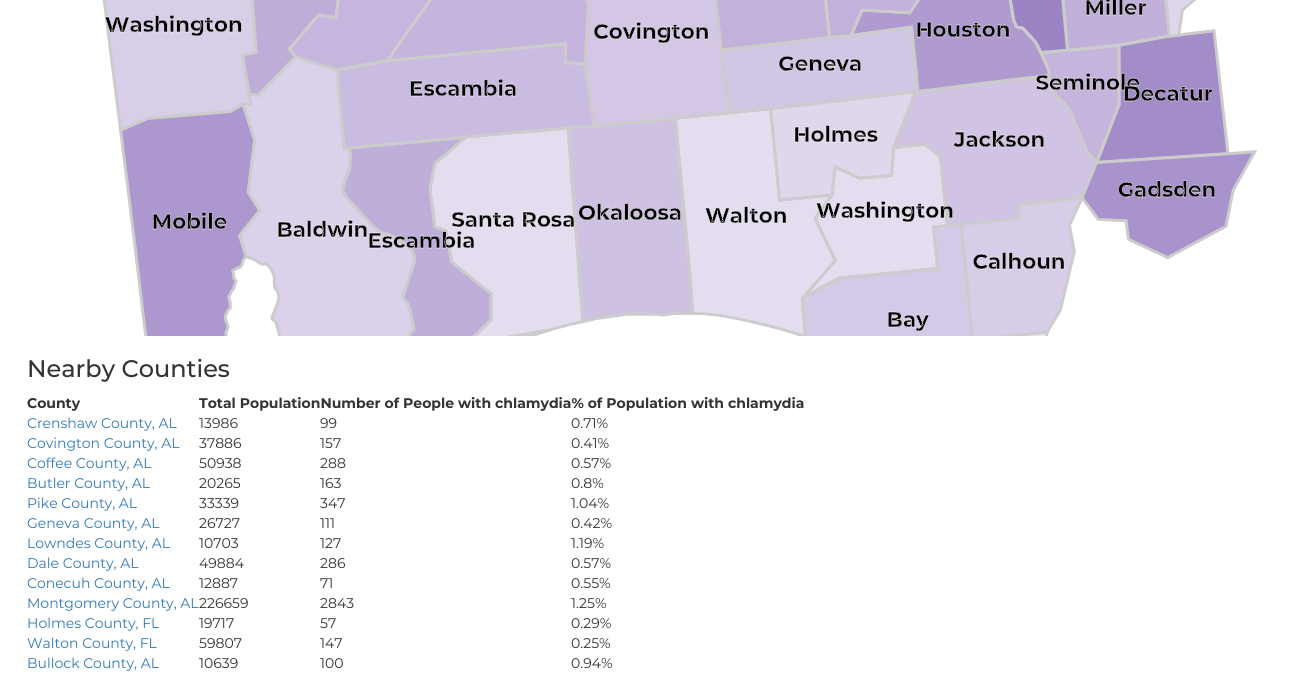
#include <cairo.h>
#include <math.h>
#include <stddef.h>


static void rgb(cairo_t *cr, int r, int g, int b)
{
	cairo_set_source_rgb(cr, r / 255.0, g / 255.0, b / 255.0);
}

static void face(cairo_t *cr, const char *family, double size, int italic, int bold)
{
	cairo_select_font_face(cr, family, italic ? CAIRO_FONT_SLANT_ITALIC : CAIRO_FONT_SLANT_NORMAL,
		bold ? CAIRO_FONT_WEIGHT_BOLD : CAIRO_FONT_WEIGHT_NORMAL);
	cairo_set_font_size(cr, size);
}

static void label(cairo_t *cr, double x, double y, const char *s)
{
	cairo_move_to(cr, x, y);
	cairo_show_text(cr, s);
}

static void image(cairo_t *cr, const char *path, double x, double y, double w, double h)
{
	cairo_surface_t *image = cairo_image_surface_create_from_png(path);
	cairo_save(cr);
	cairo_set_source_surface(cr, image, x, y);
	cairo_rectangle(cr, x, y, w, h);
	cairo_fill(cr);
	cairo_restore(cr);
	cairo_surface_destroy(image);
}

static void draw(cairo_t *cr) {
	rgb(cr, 255, 255, 255);
	cairo_paint(cr);
	image(cr, "image0.png", 102, 0, 1156, 336);
	face(cr, "Montserrat Medium", 24, 0, 0);
	rgb(cr, 51, 51, 51);
	label(cr, 27, 377, "Nearby Counties");
	face(cr, "Montserrat", 14, 0, 1);
	label(cr, 27, 408, "County");
	label(cr, 199, 408, "Total PopulationNumber of People with chlamydia% of Population with chlamydia");
	face(cr, "Montserrat", 14, 0, 0);
	rgb(cr, 51, 122, 183);
	label(cr, 27, 428, "Crenshaw County, AL");
	rgb(cr, 51, 51, 51);
	label(cr, 199, 428, "13986");
	label(cr, 320, 428, "99");
	label(cr, 571, 428, "0.71%");
	rgb(cr, 51, 122, 183);
	label(cr, 27, 448, "Covington County, AL");
	rgb(cr, 51, 51, 51);
	label(cr, 199, 448, "37886");
	label(cr, 320, 448, "157");
	label(cr, 571, 448, "0.41%");
	rgb(cr, 51, 122, 183);
	label(cr, 27, 468, "Coffee County, AL");
	rgb(cr, 51, 51, 51);
	label(cr, 199, 468, "50938");
	label(cr, 320, 468, "288");
	label(cr, 571, 468, "0.57%");
	rgb(cr, 51, 122, 183);
	label(cr, 27, 488, "Butler County, AL");
	rgb(cr, 51, 51, 51);
	label(cr, 199, 488, "20265");
	label(cr, 320, 488, "163");
	label(cr, 571, 488, "0.8%");
	rgb(cr, 51, 122, 183);
	label(cr, 27, 508, "Pike County, AL");
	rgb(cr, 51, 51, 51);
	label(cr, 199, 508, "33339");
	label(cr, 320, 508, "347");
	label(cr, 571, 508, "1.04%");
	rgb(cr, 51, 122, 183);
	label(cr, 27, 528, "Geneva County, AL");
	rgb(cr, 51, 51, 51);
	label(cr, 199, 528, "26727");
	label(cr, 320, 528, "111");
	label(cr, 571, 528, "0.42%");
	rgb(cr, 51, 122, 183);
	label(cr, 27, 548, "Lowndes County, AL");
	rgb(cr, 51, 51, 51);
	label(cr, 199, 548, "10703");
	label(cr, 320, 548, "127");
	label(cr, 571, 548, "1.19%");
	rgb(cr, 51, 122, 183);
	label(cr, 27, 568, "Dale County, AL");
	rgb(cr, 51, 51, 51);
	label(cr, 199, 568, "49884");
	label(cr, 320, 568, "286");
	label(cr, 571, 568, "0.57%");
	rgb(cr, 51, 122, 183);
	label(cr, 27, 588, "Conecuh County, AL");
	rgb(cr, 51, 51, 51);
	label(cr, 199, 588, "12887");
	label(cr, 320, 588, "71");
	label(cr, 571, 588, "0.55%");
	rgb(cr, 51, 122, 183);
	label(cr, 27, 608, "Montgomery County, AL");
	rgb(cr, 51, 51, 51);
	label(cr, 199, 608, "226659");
	label(cr, 320, 608, "2843");
	label(cr, 571, 608, "1.25%");
	rgb(cr, 51, 122, 183);
	label(cr, 27, 628, "Holmes County, FL");
	rgb(cr, 51, 51, 51);
	label(cr, 199, 628, "19717");
	label(cr, 320, 628, "57");
	label(cr, 571, 628, "0.29%");
	rgb(cr, 51, 122, 183);
	label(cr, 27, 648, "Walton County, FL");
	rgb(cr, 51, 51, 51);
	label(cr, 199, 648, "59807");
	label(cr, 320, 648, "147");
	label(cr, 571, 648, "0.25%");
	rgb(cr, 51, 122, 183);
	label(cr, 27, 668, "Bullock County, AL");
	rgb(cr, 51, 51, 51);
	label(cr, 199, 668, "10639");
	label(cr, 320, 668, "100");
	label(cr, 571, 668, "0.94%");
}

int main(void) {
	cairo_surface_t *surface = cairo_image_surface_create(CAIRO_FORMAT_RGB24, 1304, 675);
	cairo_t *cr = cairo_create(surface);
	cairo_font_options_t *options = cairo_font_options_create();
	cairo_font_options_set_hint_metrics(options, CAIRO_HINT_METRICS_OFF);
	cairo_font_options_set_hint_style(options, CAIRO_HINT_STYLE_NONE);
	cairo_set_font_options(cr, options);
	cairo_set_miter_limit(cr, 4);
	draw(cr);
	cairo_surface_write_to_png(surface, "render.png");
	cairo_font_options_destroy(options);
	cairo_destroy(cr);
	cairo_surface_destroy(surface);
	return 0;
}
